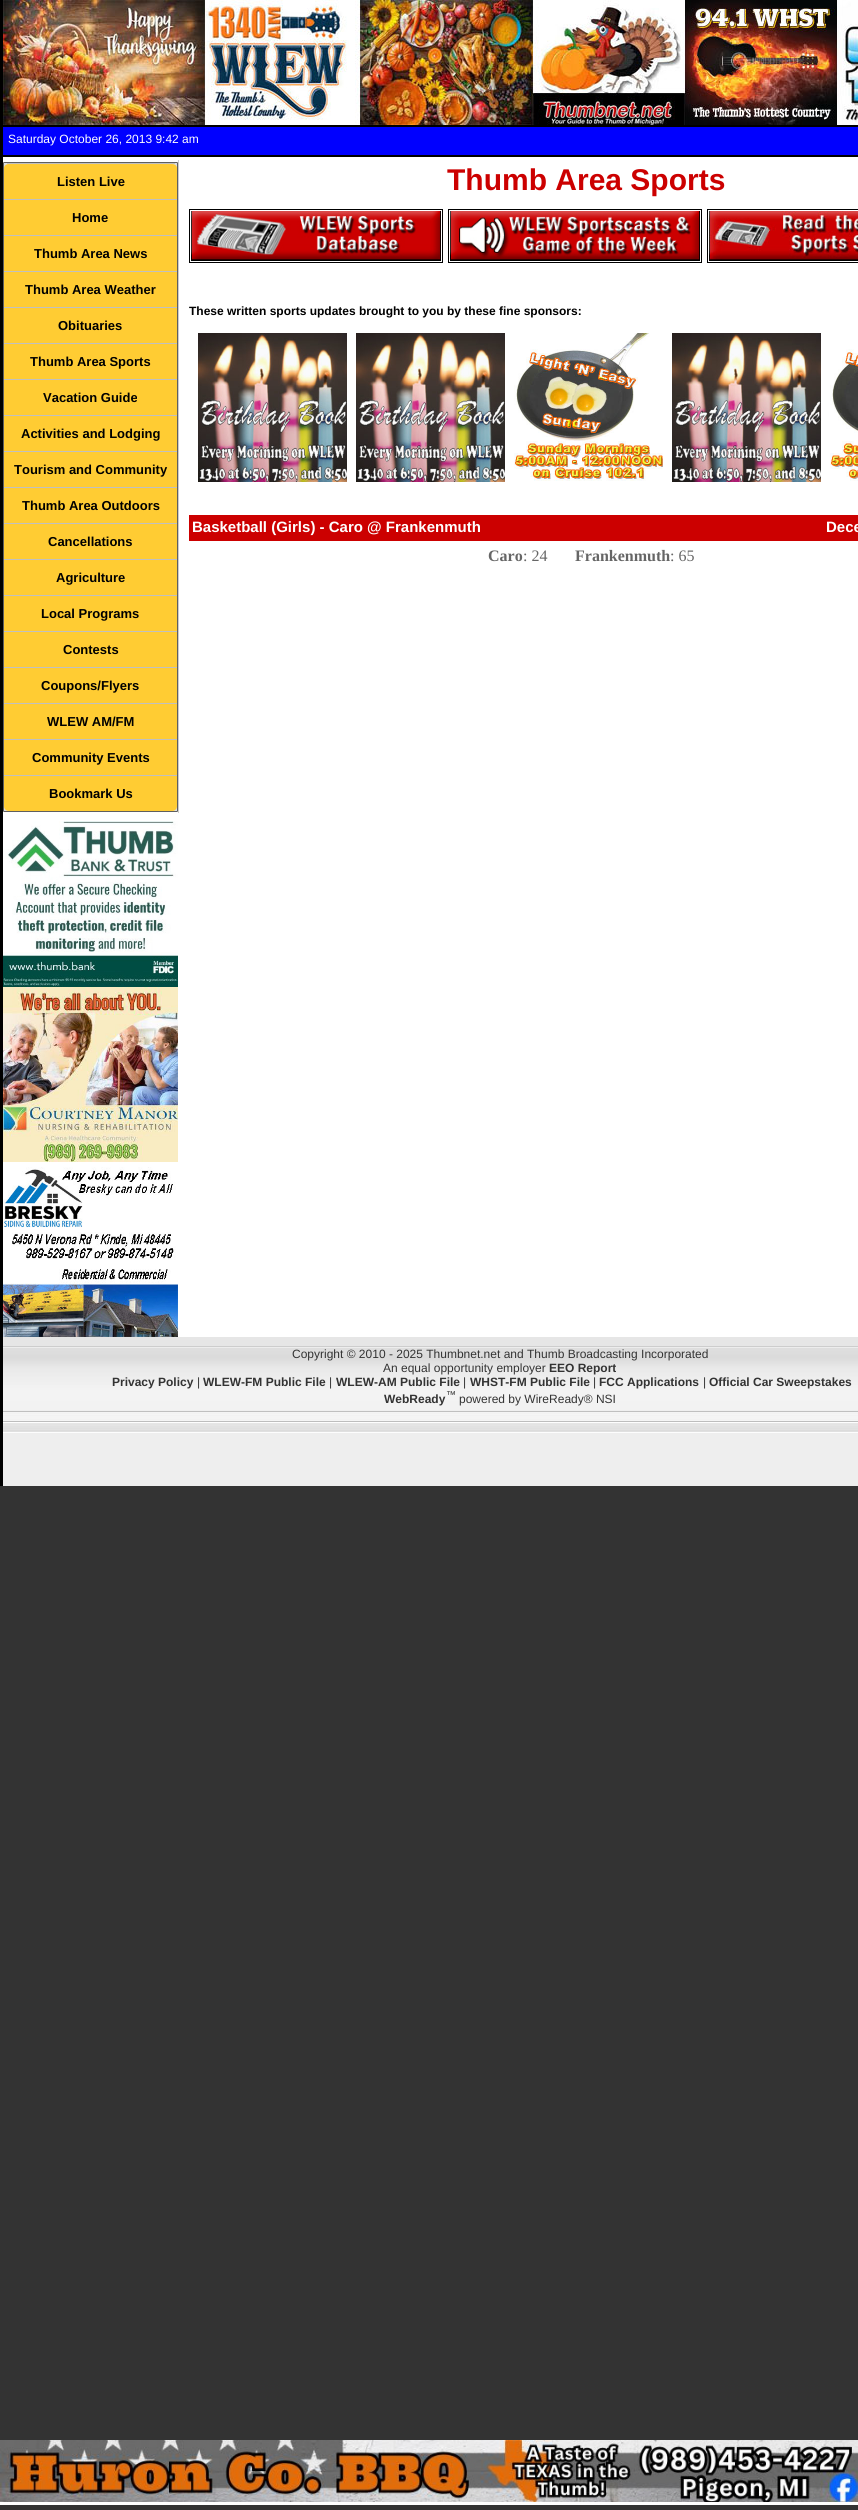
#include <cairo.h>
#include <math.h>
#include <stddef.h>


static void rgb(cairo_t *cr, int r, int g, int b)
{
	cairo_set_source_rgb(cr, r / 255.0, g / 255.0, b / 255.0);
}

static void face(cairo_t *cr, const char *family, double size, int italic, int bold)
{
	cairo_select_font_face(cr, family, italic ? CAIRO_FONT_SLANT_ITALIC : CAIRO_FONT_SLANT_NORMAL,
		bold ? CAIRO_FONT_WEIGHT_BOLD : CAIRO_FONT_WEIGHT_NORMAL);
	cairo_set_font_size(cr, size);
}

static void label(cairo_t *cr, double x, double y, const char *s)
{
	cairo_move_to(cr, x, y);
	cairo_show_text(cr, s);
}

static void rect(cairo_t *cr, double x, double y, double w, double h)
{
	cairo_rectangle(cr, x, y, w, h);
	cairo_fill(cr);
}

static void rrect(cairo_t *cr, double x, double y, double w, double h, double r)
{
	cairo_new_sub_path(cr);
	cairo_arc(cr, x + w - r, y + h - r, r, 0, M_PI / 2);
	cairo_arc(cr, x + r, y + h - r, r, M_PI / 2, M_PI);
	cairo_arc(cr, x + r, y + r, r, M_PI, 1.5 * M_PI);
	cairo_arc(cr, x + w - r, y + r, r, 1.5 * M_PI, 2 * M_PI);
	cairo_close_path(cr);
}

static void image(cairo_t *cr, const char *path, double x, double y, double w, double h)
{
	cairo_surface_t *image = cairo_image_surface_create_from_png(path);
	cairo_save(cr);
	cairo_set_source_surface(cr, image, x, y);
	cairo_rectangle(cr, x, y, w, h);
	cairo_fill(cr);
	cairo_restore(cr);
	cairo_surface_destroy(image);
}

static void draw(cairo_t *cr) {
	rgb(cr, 51, 51, 51);
	cairo_paint(cr);
	rgb(cr, 255, 255, 255);
	rect(cr, 3, 157, 855, 1180);
	rgb(cr, 0, 0, 0);
	rect(cr, 0, 0, 3, 1486);
	image(cr, "image0.png", 3, 0, 855, 125);
	rgb(cr, 0, 0, 255);
	rect(cr, 3, 127, 855, 28);
	rgb(cr, 0, 0, 0);
	rect(cr, 3, 125, 855, 2);
	rect(cr, 3, 155, 855, 2);
	face(cr, "Liberation Sans", 12, 0, 0);
	rgb(cr, 255, 255, 255);
	label(cr, 8, 143, "Saturday October 26, 2013 9:42 am");
	rgb(cr, 222, 222, 222);
	rrect(cr, 3.5, 162.5, 174, 649, 0.5);
	cairo_fill_preserve(cr);
	rgb(cr, 95, 95, 95);
	cairo_set_line_width(cr, 1);
	cairo_stroke(cr);
	rgb(cr, 255, 204, 51);
	cairo_new_path(cr);
	cairo_move_to(cr, 9, 164);
	cairo_line_to(cr, 172, 164);
	cairo_curve_to(cr, 175, 164, 177, 166, 177, 168);
	cairo_line_to(cr, 177, 199);
	cairo_line_to(cr, 4, 199);
	cairo_line_to(cr, 4, 168);
	cairo_curve_to(cr, 4, 166, 6, 164, 9, 164);
	cairo_close_path(cr);
	cairo_fill(cr);
	rgb(cr, 192, 192, 192);
	rect(cr, 7, 163, 168, 1);
	face(cr, "Liberation Sans", 13, 0, 1);
	rgb(cr, 0, 0, 0);
	label(cr, 57, 186, "Listen Live");
	rgb(cr, 255, 204, 51);
	rect(cr, 4, 200, 173, 35);
	rgb(cr, 192, 192, 192);
	rect(cr, 4, 199, 173, 1);
	rgb(cr, 0, 0, 0);
	label(cr, 72, 222, "Home");
	rgb(cr, 255, 204, 51);
	rect(cr, 4, 236, 173, 35);
	rgb(cr, 192, 192, 192);
	rect(cr, 4, 235, 173, 1);
	rgb(cr, 0, 0, 0);
	label(cr, 34, 258, "Thumb Area News");
	rgb(cr, 255, 204, 51);
	rect(cr, 4, 272, 173, 35);
	rgb(cr, 192, 192, 192);
	rect(cr, 4, 271, 173, 1);
	rgb(cr, 0, 0, 0);
	label(cr, 25, 294, "Thumb Area Weather");
	rgb(cr, 255, 204, 51);
	rect(cr, 4, 308, 173, 35);
	rgb(cr, 192, 192, 192);
	rect(cr, 4, 307, 173, 1);
	rgb(cr, 0, 0, 0);
	label(cr, 58, 330, "Obituaries");
	rgb(cr, 255, 204, 51);
	rect(cr, 4, 344, 173, 35);
	rgb(cr, 192, 192, 192);
	rect(cr, 4, 343, 173, 1);
	rgb(cr, 0, 0, 0);
	label(cr, 30, 366, "Thumb Area Sports");
	rgb(cr, 255, 204, 51);
	rect(cr, 4, 380, 173, 35);
	rgb(cr, 192, 192, 192);
	rect(cr, 4, 379, 173, 1);
	rgb(cr, 0, 0, 0);
	label(cr, 43, 402, "Vacation Guide");
	rgb(cr, 255, 204, 51);
	rect(cr, 4, 416, 173, 35);
	rgb(cr, 192, 192, 192);
	rect(cr, 4, 415, 173, 1);
	rgb(cr, 0, 0, 0);
	label(cr, 21, 438, "Activities and Lodging");
	rgb(cr, 255, 204, 51);
	rect(cr, 4, 452, 173, 35);
	rgb(cr, 192, 192, 192);
	rect(cr, 4, 451, 173, 1);
	rgb(cr, 0, 0, 0);
	label(cr, 14, 474, "Tourism and Community");
	rgb(cr, 255, 204, 51);
	rect(cr, 4, 488, 173, 35);
	rgb(cr, 192, 192, 192);
	rect(cr, 4, 487, 173, 1);
	rgb(cr, 0, 0, 0);
	label(cr, 22, 510, "Thumb Area Outdoors");
	rgb(cr, 255, 204, 51);
	rect(cr, 4, 524, 173, 35);
	rgb(cr, 192, 192, 192);
	rect(cr, 4, 523, 173, 1);
	rgb(cr, 0, 0, 0);
	label(cr, 48, 546, "Cancellations");
	rgb(cr, 255, 204, 51);
	rect(cr, 4, 560, 173, 35);
	rgb(cr, 192, 192, 192);
	rect(cr, 4, 559, 173, 1);
	rgb(cr, 0, 0, 0);
	label(cr, 56, 582, "Agriculture");
	rgb(cr, 255, 204, 51);
	rect(cr, 4, 596, 173, 35);
	rgb(cr, 192, 192, 192);
	rect(cr, 4, 595, 173, 1);
	rgb(cr, 0, 0, 0);
	label(cr, 41, 618, "Local Programs");
	rgb(cr, 255, 204, 51);
	rect(cr, 4, 632, 173, 35);
	rgb(cr, 192, 192, 192);
	rect(cr, 4, 631, 173, 1);
	rgb(cr, 0, 0, 0);
	label(cr, 63, 654, "Contests");
	rgb(cr, 255, 204, 51);
	rect(cr, 4, 668, 173, 35);
	rgb(cr, 192, 192, 192);
	rect(cr, 4, 667, 173, 1);
	rgb(cr, 0, 0, 0);
	label(cr, 41, 690, "Coupons/Flyers");
	rgb(cr, 255, 204, 51);
	rect(cr, 4, 704, 173, 35);
	rgb(cr, 192, 192, 192);
	rect(cr, 4, 703, 173, 1);
	rgb(cr, 0, 0, 0);
	label(cr, 47, 726, "WLEW AM/FM");
	rgb(cr, 255, 204, 51);
	rect(cr, 4, 740, 173, 35);
	rgb(cr, 192, 192, 192);
	rect(cr, 4, 739, 173, 1);
	rgb(cr, 0, 0, 0);
	label(cr, 32, 762, "Community Events");
	rgb(cr, 255, 204, 51);
	cairo_new_path(cr);
	cairo_move_to(cr, 4, 776);
	cairo_line_to(cr, 177, 776);
	cairo_line_to(cr, 177, 806);
	cairo_curve_to(cr, 177, 809, 175, 811, 172, 811);
	cairo_line_to(cr, 9, 811);
	cairo_curve_to(cr, 6, 811, 4, 809, 4, 806);
	cairo_close_path(cr);
	cairo_fill(cr);
	rgb(cr, 192, 192, 192);
	rect(cr, 4, 775, 173, 1);
	rgb(cr, 0, 0, 0);
	label(cr, 49, 798, "Bookmark Us");
	image(cr, "image1.png", 3, 821, 175, 166);
	image(cr, "image2.png", 3, 987, 175, 175);
	image(cr, "image3.png", 3, 1167, 175, 170);
	rgb(cr, 204, 204, 204);
	rect(cr, 178, 160, 1, 653);
	face(cr, "Liberation Sans", 30, 0, 1);
	rgb(cr, 204, 0, 0);
	label(cr, 447, 190, "Thumb Area Sports");
	cairo_rectangle(cr, 189.5, 209.5, 253, 53);
	rgb(cr, 0, 0, 0);
	cairo_stroke(cr);
	image(cr, "image4.png", 191, 211, 250, 50);
	cairo_rectangle(cr, 448.5, 209.5, 253, 53);
	cairo_stroke(cr);
	image(cr, "image5.png", 450, 211, 250, 50);
	cairo_rectangle(cr, 707.5, 209.5, 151, 53);
	cairo_stroke(cr);
	image(cr, "image6.png", 709, 211, 149, 50);
	face(cr, "Liberation Sans", 12, 0, 1);
	label(cr, 189, 315, "These written sports updates brought to you by these fine sponsors:");
	image(cr, "image7.png", 198, 333, 149, 149);
	image(cr, "image7.png", 356, 333, 149, 149);
	image(cr, "image8.png", 514, 333, 149, 148);
	image(cr, "image7.png", 672, 333, 149, 149);
	image(cr, "image9.png", 830, 349, 28, 132);
	rgb(cr, 204, 0, 0);
	rect(cr, 189, 515, 669, 26);
	face(cr, "Liberation Sans", 15, 0, 1);
	rgb(cr, 255, 255, 255);
	label(cr, 192, 532, "Basketball (Girls) - Caro @ Frankenmuth");
	label(cr, 826, 532, "Dece");
	face(cr, "Liberation Serif", 16, 0, 1);
	rgb(cr, 102, 102, 102);
	label(cr, 488, 561, "Caro");
	face(cr, "Liberation Serif", 16, 0, 0);
	label(cr, 523, 561, ": 24");
	face(cr, "Liberation Serif", 16, 0, 1);
	label(cr, 575, 561, "Frankenmuth");
	face(cr, "Liberation Serif", 16, 0, 0);
	label(cr, 670, 561, ": 65");
	rgb(cr, 238, 238, 238);
	rect(cr, 3, 1433, 855, 53);
	image(cr, "image10.png", 3, 1337, 855, 96);
	face(cr, "Liberation Sans", 12, 0, 0);
	rgb(cr, 51, 51, 51);
	label(cr, 292, 1358, "Copyright © 2010 - 2025 Thumbnet.net and Thumb Broadcasting Incorporated");
	label(cr, 383, 1372, "An equal opportunity employer");
	face(cr, "Liberation Sans", 12, 0, 1);
	label(cr, 549, 1372, "EEO Report");
	label(cr, 112, 1386, "Privacy Policy");
	face(cr, "Liberation Sans", 12, 0, 0);
	label(cr, 197, 1386, "|");
	face(cr, "Liberation Sans", 12, 0, 1);
	label(cr, 203, 1386, "WLEW-FM Public File");
	face(cr, "Liberation Sans", 12, 0, 0);
	label(cr, 329, 1386, "|");
	face(cr, "Liberation Sans", 12, 0, 1);
	label(cr, 336, 1386, "WLEW-AM Public File");
	face(cr, "Liberation Sans", 12, 0, 0);
	label(cr, 463, 1386, "|");
	face(cr, "Liberation Sans", 12, 0, 1);
	label(cr, 470, 1386, "WHST-FM Public File");
	face(cr, "Liberation Sans", 12, 0, 0);
	label(cr, 593, 1386, "|");
	face(cr, "Liberation Sans", 12, 0, 1);
	label(cr, 599, 1386, "FCC Applications");
	face(cr, "Liberation Sans", 12, 0, 0);
	label(cr, 703, 1386, "|");
	face(cr, "Liberation Sans", 12, 0, 1);
	label(cr, 709, 1386, "Official Car Sweepstakes");
	face(cr, "Liberation Sans", 10, 0, 0);
	label(cr, 446, 1398, "™");
	face(cr, "Liberation Sans", 12, 0, 1);
	label(cr, 384, 1403, "WebReady");
	face(cr, "Liberation Sans", 12, 0, 0);
	label(cr, 459, 1403, "powered by WireReady® NSI");
	rgb(cr, 255, 255, 255);
	rect(cr, 0, 2502, 858, 3);
	image(cr, "image11.png", 0, 2440, 858, 62);
}

int main(void) {
	cairo_surface_t *surface = cairo_image_surface_create(CAIRO_FORMAT_RGB24, 858, 2510);
	cairo_t *cr = cairo_create(surface);
	cairo_font_options_t *options = cairo_font_options_create();
	cairo_font_options_set_hint_metrics(options, CAIRO_HINT_METRICS_OFF);
	cairo_font_options_set_hint_style(options, CAIRO_HINT_STYLE_NONE);
	cairo_set_font_options(cr, options);
	cairo_set_miter_limit(cr, 4);
	draw(cr);
	cairo_surface_write_to_png(surface, "render.png");
	cairo_font_options_destroy(options);
	cairo_destroy(cr);
	cairo_surface_destroy(surface);
	return 0;
}
